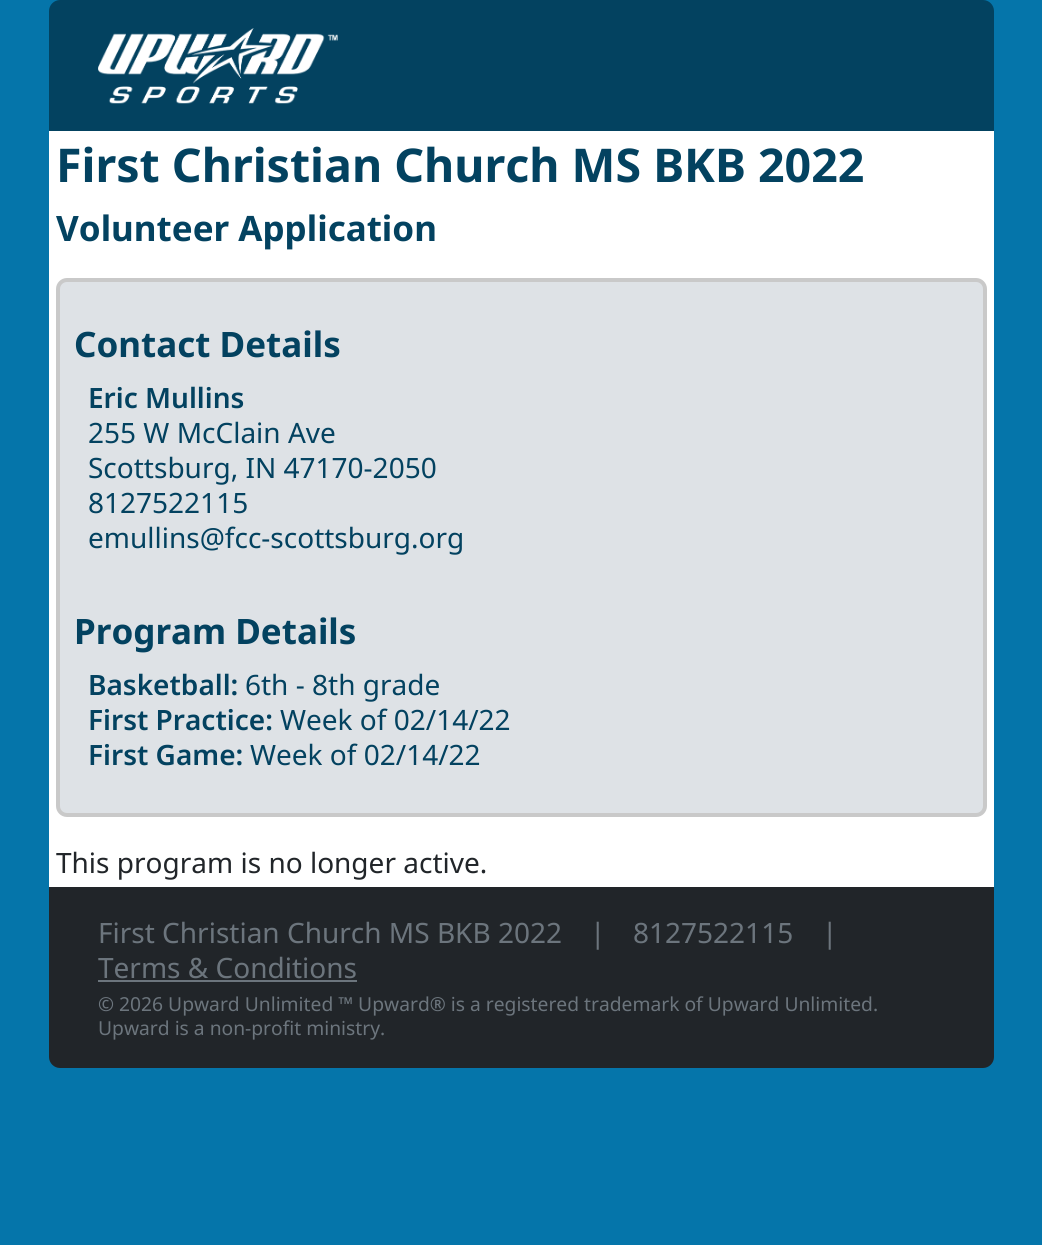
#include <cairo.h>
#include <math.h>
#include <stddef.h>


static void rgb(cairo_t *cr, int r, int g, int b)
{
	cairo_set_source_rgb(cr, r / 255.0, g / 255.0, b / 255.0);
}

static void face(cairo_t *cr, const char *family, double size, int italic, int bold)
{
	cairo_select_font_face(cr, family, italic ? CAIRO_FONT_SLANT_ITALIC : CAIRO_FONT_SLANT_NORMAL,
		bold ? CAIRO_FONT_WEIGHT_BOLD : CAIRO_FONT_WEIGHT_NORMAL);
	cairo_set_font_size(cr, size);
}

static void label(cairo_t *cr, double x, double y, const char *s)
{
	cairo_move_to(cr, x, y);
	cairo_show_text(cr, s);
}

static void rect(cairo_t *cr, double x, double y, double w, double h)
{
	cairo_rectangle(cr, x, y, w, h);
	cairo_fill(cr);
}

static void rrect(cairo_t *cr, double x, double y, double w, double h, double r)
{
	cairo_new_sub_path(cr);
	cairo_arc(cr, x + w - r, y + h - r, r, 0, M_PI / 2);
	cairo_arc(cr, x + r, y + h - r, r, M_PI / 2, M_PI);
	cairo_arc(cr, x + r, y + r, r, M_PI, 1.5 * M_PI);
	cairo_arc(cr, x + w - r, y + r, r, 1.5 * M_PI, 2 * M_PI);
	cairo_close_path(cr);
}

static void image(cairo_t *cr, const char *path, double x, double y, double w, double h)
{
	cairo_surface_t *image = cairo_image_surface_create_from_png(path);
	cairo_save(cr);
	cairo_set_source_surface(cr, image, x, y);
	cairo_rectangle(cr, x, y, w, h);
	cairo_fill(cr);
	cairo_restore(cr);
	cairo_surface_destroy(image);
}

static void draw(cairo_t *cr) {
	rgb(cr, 5, 117, 170);
	cairo_paint(cr);
	rgb(cr, 3, 66, 96);
	cairo_new_path(cr);
	cairo_move_to(cr, 60, 0);
	cairo_line_to(cr, 983, 0);
	cairo_curve_to(cr, 989, 0, 994, 5, 994, 11);
	cairo_line_to(cr, 994, 131);
	cairo_line_to(cr, 49, 131);
	cairo_line_to(cr, 49, 11);
	cairo_curve_to(cr, 49, 5, 54, 0, 60, 0);
	cairo_close_path(cr);
	cairo_fill(cr);
	image(cr, "image0.png", 98, 28, 240, 76);
	rgb(cr, 255, 255, 255);
	rect(cr, 49, 131, 945, 756);
	face(cr, "Noto Sans", 46.5, 0, 1);
	rgb(cr, 3, 66, 96);
	label(cr, 56, 182, "First Christian Church MS BKB 2022");
	face(cr, "Noto Sans", 35, 0, 1);
	label(cr, 56, 241, "Volunteer Application");
	rgb(cr, 222, 226, 230);
	rrect(cr, 58, 280, 927, 535, 9);
	cairo_fill_preserve(cr);
	rgb(cr, 201, 201, 201);
	cairo_set_line_width(cr, 4);
	cairo_stroke(cr);
	rgb(cr, 3, 66, 96);
	label(cr, 74, 357, "Contact Details");
	face(cr, "Noto Sans SemiBold", 28, 0, 0);
	label(cr, 88, 408, "Eric Mullins");
	face(cr, "Noto Sans", 28, 0, 0);
	label(cr, 88, 443, "255 W McClain Ave");
	label(cr, 88, 478, "Scottsburg, IN 47170-2050");
	label(cr, 88, 513, "8127522115");
	label(cr, 88, 548, "emullins@fcc-scottsburg.org");
	face(cr, "Noto Sans", 35, 0, 1);
	label(cr, 74, 644, "Program Details");
	face(cr, "Noto Sans SemiBold", 28, 0, 0);
	label(cr, 88, 695, "Basketball:");
	face(cr, "Noto Sans", 28, 0, 0);
	label(cr, 245, 695, "6th - 8th grade");
	face(cr, "Noto Sans SemiBold", 28, 0, 0);
	label(cr, 88, 730, "First Practice:");
	face(cr, "Noto Sans", 28, 0, 0);
	label(cr, 280, 730, "Week of 02/14/22");
	face(cr, "Noto Sans SemiBold", 28, 0, 0);
	label(cr, 88, 765, "First Game:");
	face(cr, "Noto Sans", 28, 0, 0);
	label(cr, 250, 765, "Week of 02/14/22");
	rgb(cr, 33, 37, 41);
	label(cr, 56, 873, "This program is no longer active.");
	cairo_new_path(cr);
	cairo_move_to(cr, 49, 887);
	cairo_line_to(cr, 994, 887);
	cairo_line_to(cr, 994, 1057);
	cairo_curve_to(cr, 994, 1063, 989, 1068, 983, 1068);
	cairo_line_to(cr, 60, 1068);
	cairo_curve_to(cr, 54, 1068, 49, 1063, 49, 1057);
	cairo_close_path(cr);
	cairo_fill(cr);
	rgb(cr, 108, 117, 125);
	label(cr, 98, 943, "First Christian Church MS BKB 2022");
	label(cr, 590, 943, "|");
	label(cr, 633, 943, "8127522115");
	label(cr, 822, 943, "|");
	label(cr, 98, 978, "Terms & Conditions");
	rect(cr, 98, 980, 259, 2);
	face(cr, "Noto Sans", 19.25, 0, 0);
	label(cr, 98, 1011, "© 2026 Upward Unlimited ™ Upward® is a registered trademark of Upward Unlimited.");
	label(cr, 98, 1035, "Upward is a non-profit ministry.");
}

int main(void) {
	cairo_surface_t *surface = cairo_image_surface_create(CAIRO_FORMAT_RGB24, 1042, 1245);
	cairo_t *cr = cairo_create(surface);
	cairo_font_options_t *options = cairo_font_options_create();
	cairo_font_options_set_hint_metrics(options, CAIRO_HINT_METRICS_OFF);
	cairo_font_options_set_hint_style(options, CAIRO_HINT_STYLE_NONE);
	cairo_set_font_options(cr, options);
	cairo_set_miter_limit(cr, 4);
	draw(cr);
	cairo_surface_write_to_png(surface, "render.png");
	cairo_font_options_destroy(options);
	cairo_destroy(cr);
	cairo_surface_destroy(surface);
	return 0;
}
